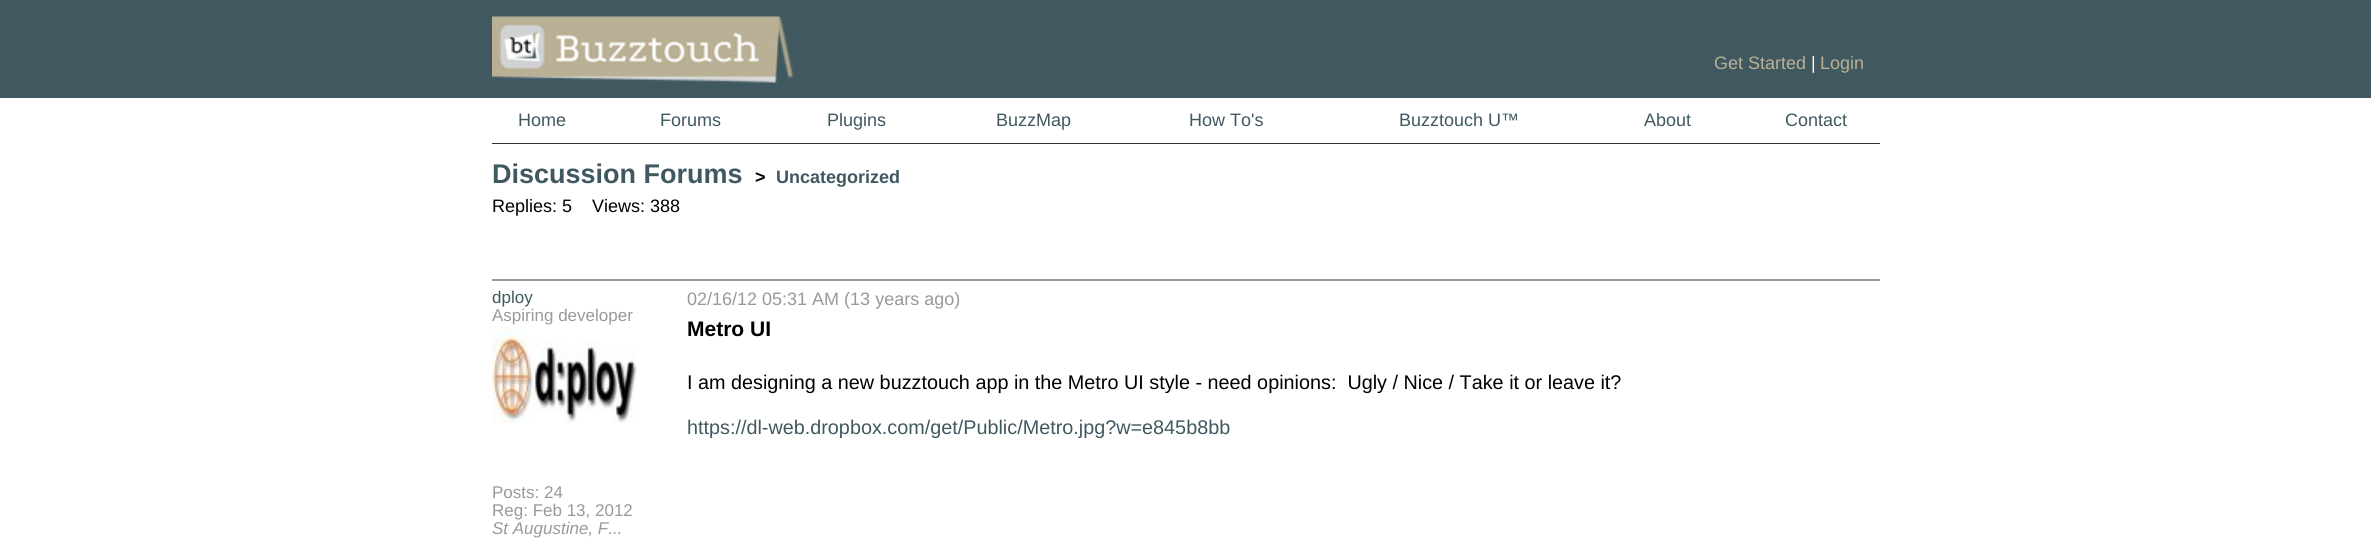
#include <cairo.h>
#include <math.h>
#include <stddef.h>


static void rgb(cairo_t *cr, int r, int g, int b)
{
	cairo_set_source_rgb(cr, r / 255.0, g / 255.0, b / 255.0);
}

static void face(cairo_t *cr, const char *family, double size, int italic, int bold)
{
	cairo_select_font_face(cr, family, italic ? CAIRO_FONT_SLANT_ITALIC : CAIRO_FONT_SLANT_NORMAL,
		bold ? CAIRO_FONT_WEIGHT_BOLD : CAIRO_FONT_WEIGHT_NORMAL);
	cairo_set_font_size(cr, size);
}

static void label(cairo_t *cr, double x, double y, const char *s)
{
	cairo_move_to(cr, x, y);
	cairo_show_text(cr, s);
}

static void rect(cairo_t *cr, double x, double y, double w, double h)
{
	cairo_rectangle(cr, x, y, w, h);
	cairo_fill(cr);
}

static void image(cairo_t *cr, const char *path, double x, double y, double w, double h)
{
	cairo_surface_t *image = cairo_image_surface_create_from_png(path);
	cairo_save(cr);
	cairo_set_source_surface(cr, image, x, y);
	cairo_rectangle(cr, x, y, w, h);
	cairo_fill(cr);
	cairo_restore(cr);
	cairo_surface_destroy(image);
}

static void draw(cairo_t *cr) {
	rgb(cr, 255, 255, 255);
	cairo_paint(cr);
	rgb(cr, 64, 88, 96);
	rect(cr, 0, 0, 2371, 98);
	image(cr, "image0.png", 492, 16, 302, 67);
	face(cr, "Liberation Sans", 18, 0, 0);
	rgb(cr, 185, 176, 148);
	label(cr, 1714, 69, "Get Started");
	rgb(cr, 255, 255, 255);
	label(cr, 1811, 69, "|");
	rgb(cr, 185, 176, 148);
	label(cr, 1820, 69, "Login");
	rgb(cr, 47, 48, 47);
	rect(cr, 492, 143, 1388, 1);
	rgb(cr, 64, 88, 96);
	label(cr, 518, 126, "Home");
	label(cr, 660, 126, "Forums");
	label(cr, 827, 126, "Plugins");
	label(cr, 996, 126, "BuzzMap");
	label(cr, 1189, 126, "How To's");
	label(cr, 1399, 126, "Buzztouch U™");
	label(cr, 1644, 126, "About");
	label(cr, 1785, 126, "Contact");
	face(cr, "Liberation Sans", 27, 0, 1);
	label(cr, 492, 183, "Discussion Forums");
	face(cr, "Liberation Sans", 18, 0, 1);
	rgb(cr, 0, 0, 0);
	label(cr, 755, 183, ">");
	rgb(cr, 64, 88, 96);
	label(cr, 776, 183, "Uncategorized");
	face(cr, "Liberation Sans", 18, 0, 0);
	rgb(cr, 0, 0, 0);
	label(cr, 492, 212, "Replies: 5");
	label(cr, 592, 212, "Views: 388");
	rgb(cr, 153, 153, 153);
	rect(cr, 492, 279, 1388, 2);
	face(cr, "Liberation Sans", 17, 0, 0);
	rgb(cr, 64, 88, 96);
	label(cr, 492, 303, "dploy");
	rgb(cr, 153, 153, 153);
	label(cr, 492, 321, "Aspiring developer");
	image(cr, "image1.png", 492, 327, 145, 96);
	label(cr, 492, 498, "Posts: 24");
	label(cr, 492, 516, "Reg: Feb 13, 2012");
	face(cr, "Liberation Sans", 17, 1, 0);
	label(cr, 492, 534, "St Augustine, F...");
	face(cr, "Liberation Sans", 18, 0, 0);
	label(cr, 687, 305, "02/16/12 05:31 AM (13 years ago)");
	face(cr, "Liberation Sans", 21, 0, 1);
	rgb(cr, 0, 0, 0);
	label(cr, 687, 336, "Metro UI");
	face(cr, "Liberation Sans", 19.8, 0, 0);
	label(cr, 687, 389, "I am designing a new buzztouch app in the Metro UI style - need opinions:  Ugly / Nice / Take it or leave it?");
	rgb(cr, 64, 88, 96);
	label(cr, 687, 434, "https://dl-web.dropbox.com/get/Public/Metro.jpg?w=e845b8bb");
}

int main(void) {
	cairo_surface_t *surface = cairo_image_surface_create(CAIRO_FORMAT_RGB24, 2371, 547);
	cairo_t *cr = cairo_create(surface);
	cairo_font_options_t *options = cairo_font_options_create();
	cairo_font_options_set_hint_metrics(options, CAIRO_HINT_METRICS_OFF);
	cairo_font_options_set_hint_style(options, CAIRO_HINT_STYLE_NONE);
	cairo_set_font_options(cr, options);
	cairo_set_miter_limit(cr, 4);
	draw(cr);
	cairo_surface_write_to_png(surface, "render.png");
	cairo_font_options_destroy(options);
	cairo_destroy(cr);
	cairo_surface_destroy(surface);
	return 0;
}
